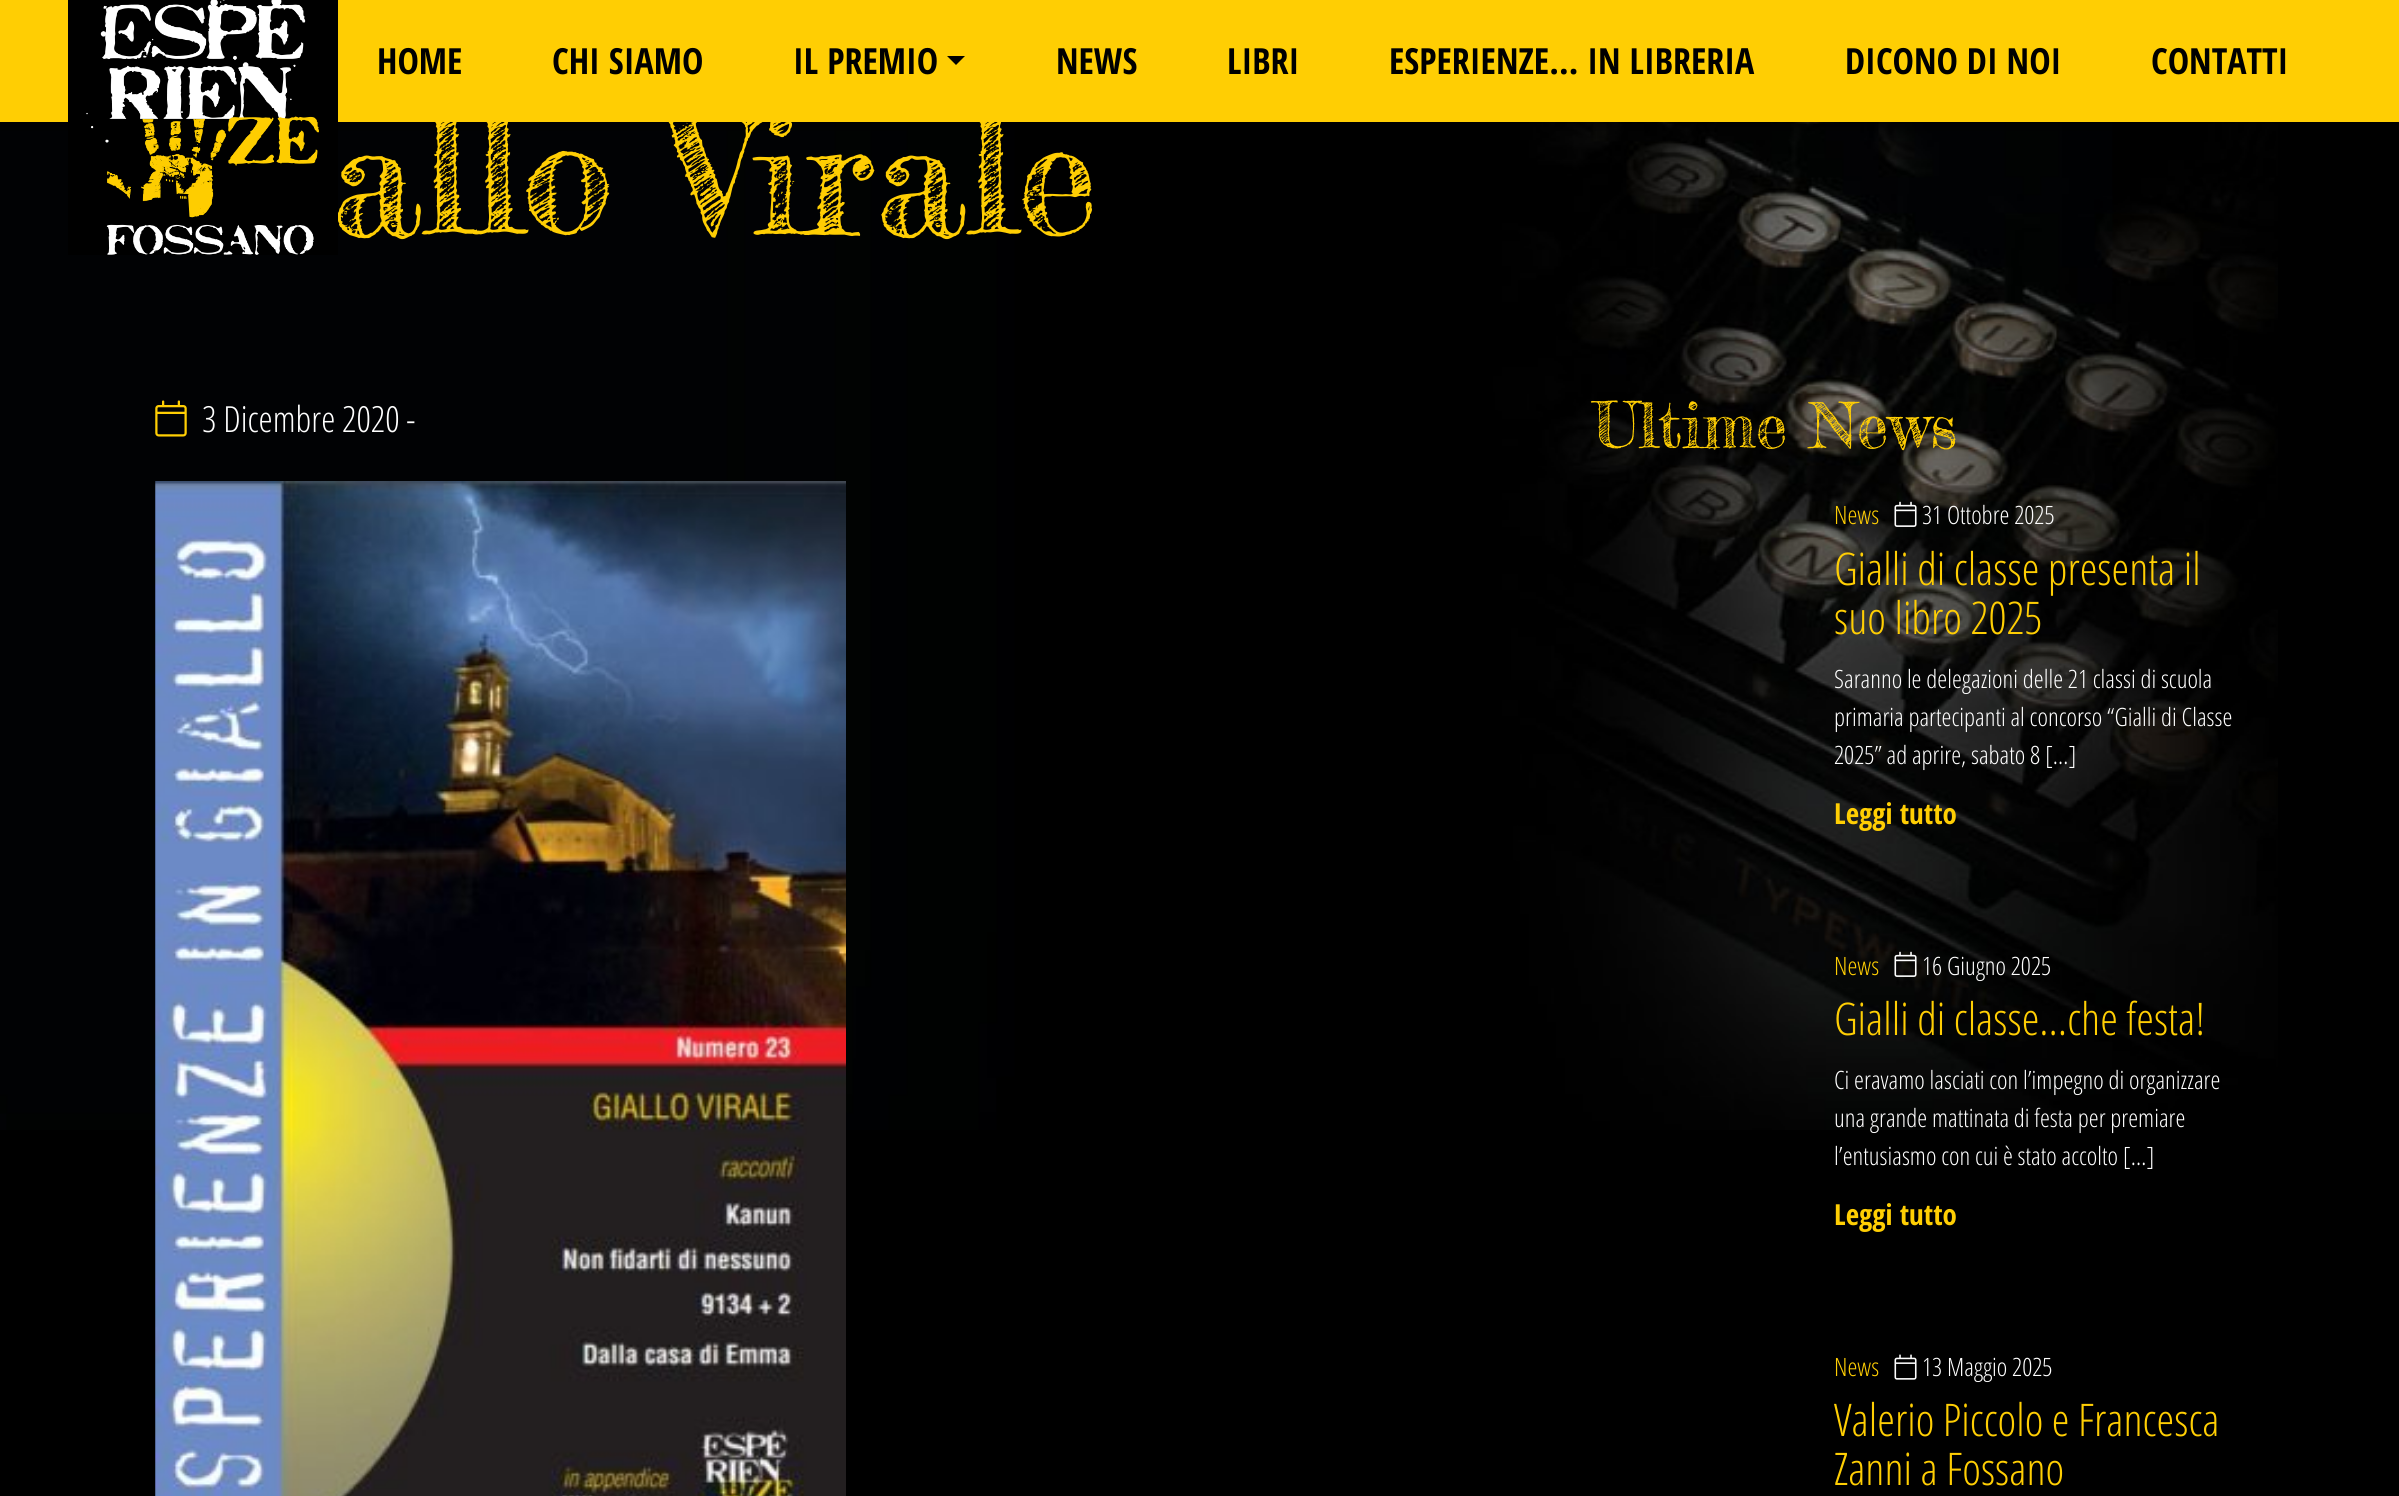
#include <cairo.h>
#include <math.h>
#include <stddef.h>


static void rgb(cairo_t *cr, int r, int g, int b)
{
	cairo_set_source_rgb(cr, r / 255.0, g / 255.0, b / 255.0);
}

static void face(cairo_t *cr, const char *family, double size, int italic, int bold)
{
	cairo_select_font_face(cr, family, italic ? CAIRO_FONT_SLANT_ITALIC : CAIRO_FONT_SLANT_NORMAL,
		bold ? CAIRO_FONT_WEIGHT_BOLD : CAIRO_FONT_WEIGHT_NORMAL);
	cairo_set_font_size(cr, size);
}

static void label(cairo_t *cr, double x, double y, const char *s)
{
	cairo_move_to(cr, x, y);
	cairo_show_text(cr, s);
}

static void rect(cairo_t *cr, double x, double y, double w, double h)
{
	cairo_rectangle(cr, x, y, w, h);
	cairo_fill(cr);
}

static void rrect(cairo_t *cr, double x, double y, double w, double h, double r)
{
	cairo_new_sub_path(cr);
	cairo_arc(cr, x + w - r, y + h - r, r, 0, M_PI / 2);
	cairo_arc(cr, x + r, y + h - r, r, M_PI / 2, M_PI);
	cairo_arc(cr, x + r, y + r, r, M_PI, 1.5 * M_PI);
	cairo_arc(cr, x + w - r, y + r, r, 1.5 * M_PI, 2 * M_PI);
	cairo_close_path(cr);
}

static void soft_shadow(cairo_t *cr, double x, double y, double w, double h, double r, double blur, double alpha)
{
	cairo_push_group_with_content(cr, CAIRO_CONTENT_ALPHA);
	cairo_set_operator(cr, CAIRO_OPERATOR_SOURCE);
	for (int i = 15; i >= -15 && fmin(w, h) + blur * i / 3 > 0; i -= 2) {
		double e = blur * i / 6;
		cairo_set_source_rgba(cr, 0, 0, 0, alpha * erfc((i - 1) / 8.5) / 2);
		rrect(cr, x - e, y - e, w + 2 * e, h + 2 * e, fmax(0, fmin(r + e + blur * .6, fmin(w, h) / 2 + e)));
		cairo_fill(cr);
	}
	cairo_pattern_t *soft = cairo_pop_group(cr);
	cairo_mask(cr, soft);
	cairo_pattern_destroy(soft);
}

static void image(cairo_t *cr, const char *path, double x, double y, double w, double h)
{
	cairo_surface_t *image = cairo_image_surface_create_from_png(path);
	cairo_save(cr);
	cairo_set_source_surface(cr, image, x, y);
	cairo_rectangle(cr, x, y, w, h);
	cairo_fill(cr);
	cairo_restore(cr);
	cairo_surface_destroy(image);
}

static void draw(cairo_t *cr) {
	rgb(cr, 0, 0, 0);
	cairo_paint(cr);
	image(cr, "image1.png", 0, 122, 2278, 1008);
	soft_shadow(cr, 0, 0, 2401, 122, 0, 11, 0.7);
	rgb(cr, 255, 206, 3);
	rect(cr, 0, 0, 2399, 122);
	face(cr, "Fredericka the Great", 162, 0, 0);
	label(cr, 330, 234, "allo Virale");
	image(cr, "image0.png", 68, 0, 270, 255);
	face(cr, "Open Sans Condensed", 36, 0, 1);
	rgb(cr, 0, 0, 0);
	label(cr, 377, 74, "HOME");
	label(cr, 552, 74, "CHI SIAMO");
	label(cr, 793, 74, "IL PREMIO");
	cairo_new_path(cr);
	cairo_move_to(cr, 947, 56);
	cairo_line_to(cr, 965, 56);
	cairo_line_to(cr, 956, 65);
	cairo_close_path(cr);
	cairo_fill(cr);
	label(cr, 1056, 74, "NEWS");
	label(cr, 1227, 74, "LIBRI");
	label(cr, 1389, 74, "ESPERIENZE… IN LIBRERIA");
	label(cr, 1845, 74, "DICONO DI NOI");
	label(cr, 2151, 74, "CONTATTI");
	image(cr, "image2.png", 155, 400, 32, 37);
	face(cr, "Open Sans Condensed Light", 36, 0, 0);
	rgb(cr, 255, 255, 255);
	label(cr, 202, 432, "3 Dicembre 2020 -");
	image(cr, "image3.png", 155, 481, 691, 1015);
	face(cr, "Fredericka the Great", 63, 0, 0);
	rgb(cr, 255, 206, 3);
	label(cr, 1594, 448, "Ultime News");
	face(cr, "Open Sans Condensed Light", 25.25, 0, 0);
	label(cr, 1834, 524, "News");
	image(cr, "image4.png", 1894, 501, 23, 26);
	rgb(cr, 255, 255, 255);
	label(cr, 1922, 524, "31 Ottobre 2025");
	face(cr, "Open Sans Condensed Light", 45, 0, 0);
	rgb(cr, 255, 206, 3);
	label(cr, 1834, 585, "Gialli di classe presenta il");
	label(cr, 1834, 634, "suo libro 2025");
	face(cr, "Open Sans Condensed Light", 25.25, 0, 0);
	rgb(cr, 255, 255, 255);
	label(cr, 1834, 688, "Saranno le delegazioni delle 21 classi di scuola");
	label(cr, 1834, 726, "primaria partecipanti al concorso “Gialli di Classe");
	label(cr, 1834, 764, "2025” ad aprire, sabato 8 […]");
	face(cr, "Open Sans Condensed", 29, 0, 1);
	rgb(cr, 255, 206, 3);
	label(cr, 1834, 824, "Leggi tutto");
	cairo_set_source_rgba(cr, 0, 0, 0, 0.1);
	rect(cr, 1849, 891, 87, 2);
	face(cr, "Open Sans Condensed Light", 25.25, 0, 0);
	rgb(cr, 255, 206, 3);
	label(cr, 1834, 975, "News");
	image(cr, "image5.png", 1894, 951, 23, 26);
	rgb(cr, 255, 255, 255);
	label(cr, 1922, 975, "16 Giugno 2025");
	face(cr, "Open Sans Condensed Light", 45, 0, 0);
	rgb(cr, 255, 206, 3);
	label(cr, 1834, 1035, "Gialli di classe…che festa!");
	face(cr, "Open Sans Condensed Light", 25.25, 0, 0);
	rgb(cr, 255, 255, 255);
	label(cr, 1834, 1089, "Ci eravamo lasciati con l’impegno di organizzare");
	label(cr, 1834, 1127, "una grande mattinata di festa per premiare");
	label(cr, 1834, 1165, "l’entusiasmo con cui è stato accolto […]");
	face(cr, "Open Sans Condensed", 29, 0, 1);
	rgb(cr, 255, 206, 3);
	label(cr, 1834, 1225, "Leggi tutto");
	face(cr, "Open Sans Condensed Light", 25.25, 0, 0);
	label(cr, 1834, 1376, "News");
	image(cr, "image6.png", 1894, 1354, 23, 26);
	rgb(cr, 255, 255, 255);
	label(cr, 1922, 1376, "13 Maggio 2025");
	face(cr, "Open Sans Condensed Light", 45, 0, 0);
	rgb(cr, 255, 206, 3);
	label(cr, 1834, 1436, "Valerio Piccolo e Francesca");
	label(cr, 1834, 1485, "Zanni a Fossano");
}

int main(void) {
	cairo_surface_t *surface = cairo_image_surface_create(CAIRO_FORMAT_RGB24, 2399, 1496);
	cairo_t *cr = cairo_create(surface);
	cairo_font_options_t *options = cairo_font_options_create();
	cairo_font_options_set_hint_metrics(options, CAIRO_HINT_METRICS_OFF);
	cairo_font_options_set_hint_style(options, CAIRO_HINT_STYLE_NONE);
	cairo_set_font_options(cr, options);
	cairo_set_miter_limit(cr, 4);
	draw(cr);
	cairo_surface_write_to_png(surface, "render.png");
	cairo_font_options_destroy(options);
	cairo_destroy(cr);
	cairo_surface_destroy(surface);
	return 0;
}
